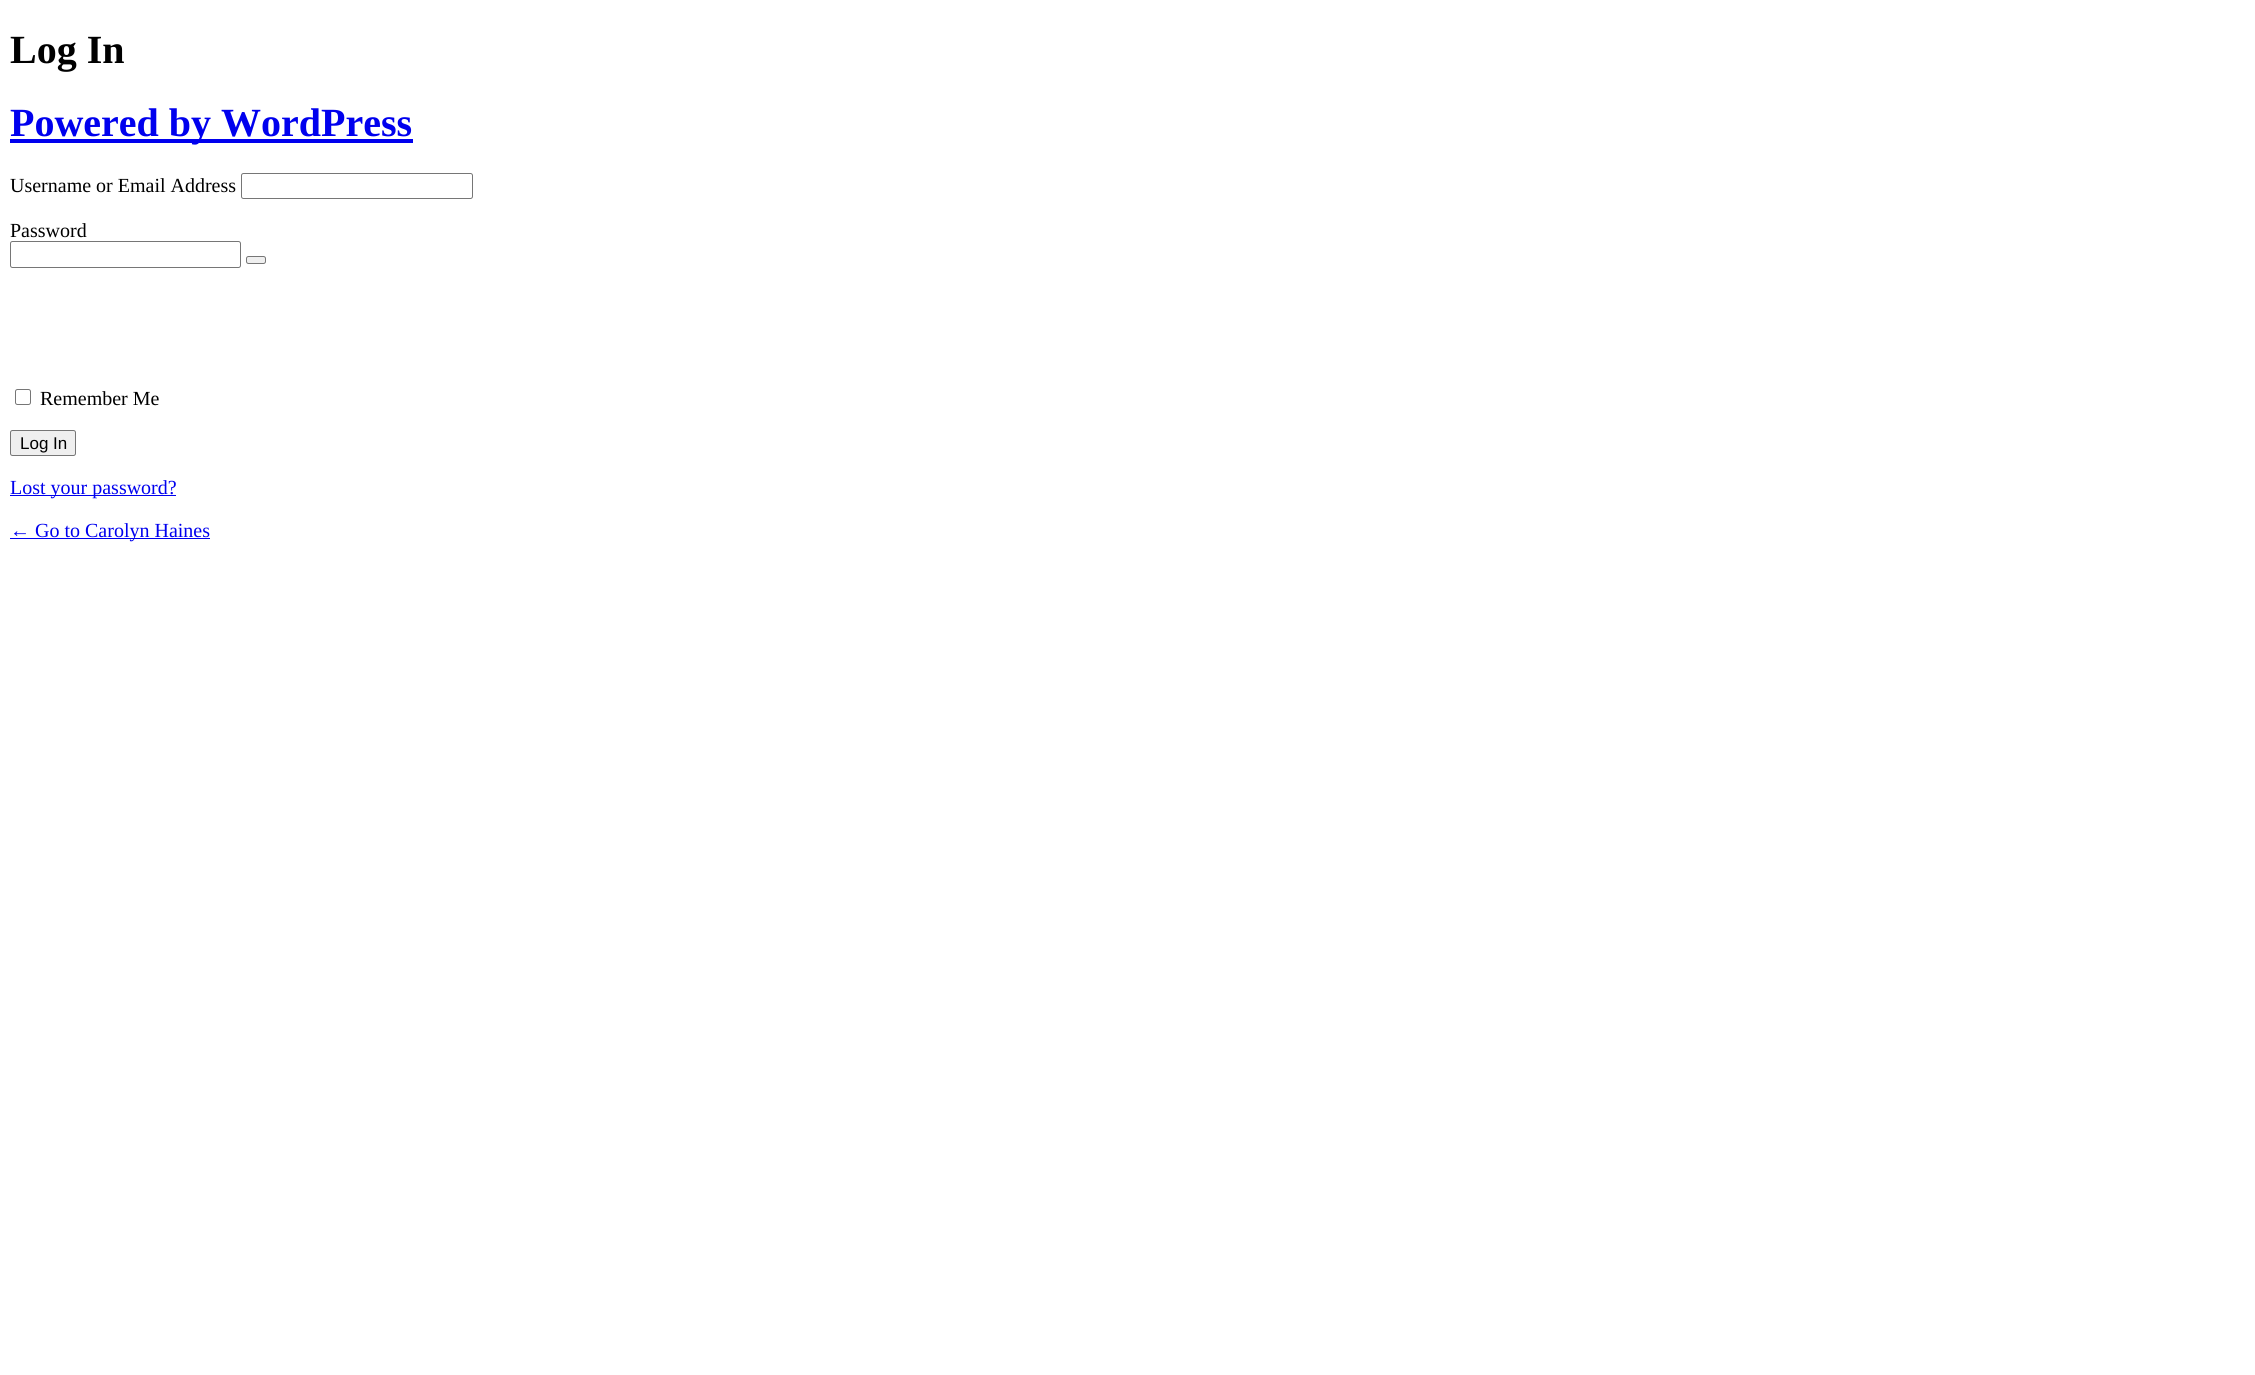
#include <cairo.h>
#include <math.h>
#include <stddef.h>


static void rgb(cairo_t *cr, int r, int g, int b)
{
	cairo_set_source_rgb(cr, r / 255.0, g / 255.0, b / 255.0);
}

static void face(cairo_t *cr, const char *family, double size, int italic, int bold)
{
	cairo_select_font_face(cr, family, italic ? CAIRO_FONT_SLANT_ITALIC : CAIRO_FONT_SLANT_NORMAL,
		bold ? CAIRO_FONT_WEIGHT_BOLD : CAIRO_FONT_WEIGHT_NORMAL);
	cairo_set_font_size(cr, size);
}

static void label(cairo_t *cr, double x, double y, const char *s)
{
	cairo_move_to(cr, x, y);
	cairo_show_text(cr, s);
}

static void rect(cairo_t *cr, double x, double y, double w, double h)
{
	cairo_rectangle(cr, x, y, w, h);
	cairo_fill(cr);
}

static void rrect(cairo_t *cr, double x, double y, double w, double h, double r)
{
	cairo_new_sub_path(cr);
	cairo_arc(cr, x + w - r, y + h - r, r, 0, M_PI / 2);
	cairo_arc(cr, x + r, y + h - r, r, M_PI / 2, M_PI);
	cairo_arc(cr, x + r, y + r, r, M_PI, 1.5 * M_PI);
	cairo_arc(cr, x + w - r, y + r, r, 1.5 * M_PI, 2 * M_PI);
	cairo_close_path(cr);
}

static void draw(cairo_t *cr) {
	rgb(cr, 255, 255, 255);
	cairo_paint(cr);
	face(cr, "Liberation Serif", 40, 0, 1);
	rgb(cr, 0, 0, 0);
	label(cr, 10, 63, "Log In");
	rgb(cr, 0, 0, 238);
	rect(cr, 10, 139, 403, 4);
	label(cr, 10, 136, "Powered by WordPress");
	face(cr, "Liberation Serif", 20, 0, 0);
	rgb(cr, 0, 0, 0);
	label(cr, 10, 192, "Username or Email Address");
	rrect(cr, 241.5, 173.5, 231, 25, 2);
	rgb(cr, 118, 118, 118);
	cairo_set_line_width(cr, 1);
	cairo_stroke(cr);
	rgb(cr, 0, 0, 0);
	label(cr, 10, 237, "Password");
	rrect(cr, 10.5, 241.5, 230, 26, 2);
	rgb(cr, 118, 118, 118);
	cairo_stroke(cr);
	rgb(cr, 239, 239, 239);
	rrect(cr, 246.5, 256.5, 19, 7, 2);
	cairo_fill_preserve(cr);
	rgb(cr, 118, 118, 118);
	cairo_stroke(cr);
	rrect(cr, 15.5, 389.5, 15, 15, 2);
	cairo_stroke(cr);
	rgb(cr, 0, 0, 0);
	label(cr, 40, 405, "Remember Me");
	rgb(cr, 239, 239, 239);
	rrect(cr, 10.5, 430.5, 65, 25, 2);
	cairo_fill_preserve(cr);
	rgb(cr, 118, 118, 118);
	cairo_stroke(cr);
	face(cr, "Liberation Sans", 17, 0, 0);
	rgb(cr, 0, 0, 0);
	label(cr, 20, 449, "Log In");
	rgb(cr, 0, 0, 238);
	rect(cr, 10, 495, 166, 1);
	face(cr, "Liberation Serif", 20, 0, 0);
	label(cr, 10, 494, "Lost your password?");
	rect(cr, 10, 538, 200, 1);
	label(cr, 10, 537, "← Go to Carolyn Haines");
}

int main(void) {
	cairo_surface_t *surface = cairo_image_surface_create(CAIRO_FORMAT_RGB24, 2255, 1375);
	cairo_t *cr = cairo_create(surface);
	cairo_font_options_t *options = cairo_font_options_create();
	cairo_font_options_set_hint_metrics(options, CAIRO_HINT_METRICS_OFF);
	cairo_font_options_set_hint_style(options, CAIRO_HINT_STYLE_NONE);
	cairo_set_font_options(cr, options);
	cairo_set_miter_limit(cr, 4);
	draw(cr);
	cairo_surface_write_to_png(surface, "render.png");
	cairo_font_options_destroy(options);
	cairo_destroy(cr);
	cairo_surface_destroy(surface);
	return 0;
}
